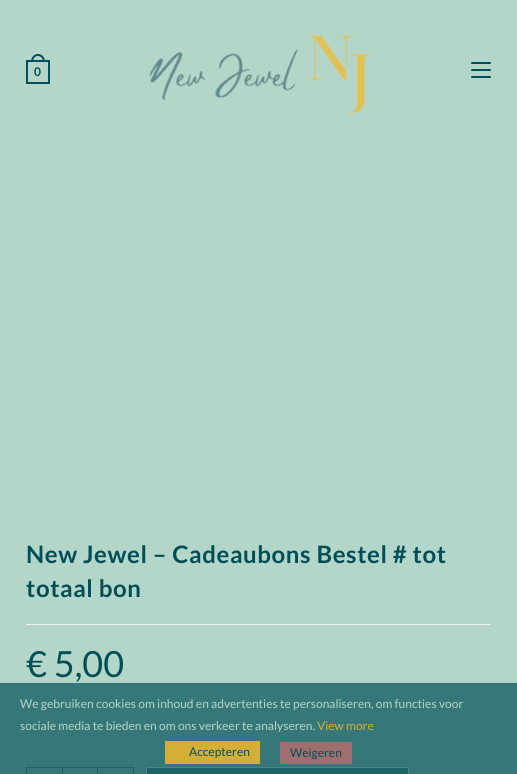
#include <cairo.h>
#include <math.h>
#include <stddef.h>


static void rgb(cairo_t *cr, int r, int g, int b)
{
	cairo_set_source_rgb(cr, r / 255.0, g / 255.0, b / 255.0);
}

static void face(cairo_t *cr, const char *family, double size, int italic, int bold)
{
	cairo_select_font_face(cr, family, italic ? CAIRO_FONT_SLANT_ITALIC : CAIRO_FONT_SLANT_NORMAL,
		bold ? CAIRO_FONT_WEIGHT_BOLD : CAIRO_FONT_WEIGHT_NORMAL);
	cairo_set_font_size(cr, size);
}

static void label(cairo_t *cr, double x, double y, const char *s)
{
	cairo_move_to(cr, x, y);
	cairo_show_text(cr, s);
}

static void tracked(cairo_t *cr, double x, double y, const char *s, double letter, double word)
{
	cairo_move_to(cr, x, y);
	while (*s) {
		char ch[5] = {0};
		int n = 0;
		do ch[n++] = *s++; while ((*s & 0xC0) == 0x80);
		cairo_show_text(cr, ch);
		cairo_rel_move_to(cr, letter + word * (*ch == ' '), 0);
	}
}

static void rect(cairo_t *cr, double x, double y, double w, double h)
{
	cairo_rectangle(cr, x, y, w, h);
	cairo_fill(cr);
}

static void rrect(cairo_t *cr, double x, double y, double w, double h, double r)
{
	cairo_new_sub_path(cr);
	cairo_arc(cr, x + w - r, y + h - r, r, 0, M_PI / 2);
	cairo_arc(cr, x + r, y + h - r, r, M_PI / 2, M_PI);
	cairo_arc(cr, x + r, y + r, r, M_PI, 1.5 * M_PI);
	cairo_arc(cr, x + w - r, y + r, r, 1.5 * M_PI, 2 * M_PI);
	cairo_close_path(cr);
}

static void image(cairo_t *cr, const char *path, double x, double y, double w, double h)
{
	cairo_surface_t *image = cairo_image_surface_create_from_png(path);
	cairo_save(cr);
	cairo_set_source_surface(cr, image, x, y);
	cairo_rectangle(cr, x, y, w, h);
	cairo_fill(cr);
	cairo_restore(cr);
	cairo_surface_destroy(image);
}

static void draw(cairo_t *cr) {
	rgb(cr, 180, 214, 200);
	cairo_paint(cr);
	rgb(cr, 54, 120, 122);
	rect(cr, 0, 683, 517, 91);
	cairo_rectangle(cr, 27, 61, 22, 22);
	rgb(cr, 0, 79, 88);
	cairo_stroke(cr);
	cairo_set_fill_rule(cr, CAIRO_FILL_RULE_EVEN_ODD);
	cairo_new_path(cr);
	cairo_move_to(cr, 38, 54);
	cairo_curve_to(cr, 42.5, 54, 45, 58, 45, 62);
	cairo_line_to(cr, 31, 62);
	cairo_curve_to(cr, 31, 58, 33.5, 54, 38, 54);
	cairo_close_path(cr);
	cairo_move_to(cr, 38, 56);
	cairo_curve_to(cr, 41.5, 56, 43, 59, 43, 62);
	cairo_line_to(cr, 33, 62);
	cairo_curve_to(cr, 33, 59, 34.5, 56, 38, 56);
	cairo_close_path(cr);
	cairo_fill(cr);
	face(cr, "Lato", 12, 0, 1);
	tracked(cr, 34, 76, "0", 1, 0);
	image(cr, "image0.png", 149, 35, 223, 79);
	rrect(cr, 471, 76, 20, 2, 1);
	cairo_fill(cr);
	rrect(cr, 471, 62, 20, 2, 1);
	cairo_fill(cr);
	rrect(cr, 471, 69, 20, 2, 1);
	cairo_fill(cr);
	rgb(cr, 241, 241, 241);
	rect(cr, 26, 624, 465, 1);
	face(cr, "Lato", 24, 0, 1);
	rgb(cr, 0, 79, 88);
	tracked(cr, 26, 563, "New Jewel – Cadeaubons Bestel # tot", 0.6, 0);
	tracked(cr, 26, 597, "totaal bon", 0.6, 0);
	face(cr, "Lato", 36, 0, 0);
	label(cr, 26, 677, "€ 5,00");
	rgb(cr, 29, 97, 105);
	rect(cr, 26, 767, 36, 1);
	rect(cr, 26, 767, 1, 7);
	cairo_rectangle(cr, 62.5, 767.5, 35, 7);
	cairo_set_line_width(cr, 1);
	cairo_stroke(cr);
	rect(cr, 98, 767, 36, 1);
	rect(cr, 133, 767, 1, 7);
	cairo_rectangle(cr, 146.5, 767.5, 262, 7);
	cairo_fill_preserve(cr);
	rgb(cr, 77, 132, 138);
	cairo_stroke(cr);
	face(cr, "Lato", 12, 0, 0);
	rgb(cr, 180, 214, 200);
	label(cr, 20, 708, "We gebruiken cookies om inhoud en advertenties te personaliseren, om functies voor");
	label(cr, 20, 730, "sociale media te bieden en om ons verkeer te analyseren.");
	rgb(cr, 212, 175, 55);
	label(cr, 317, 730, "View more");
	rect(cr, 165, 741, 95, 23);
	rgb(cr, 0, 79, 88);
	label(cr, 189, 756, "Accepteren");
	rgb(cr, 159, 111, 111);
	rect(cr, 280, 742, 72, 22);
	rgb(cr, 0, 79, 88);
	label(cr, 290, 757, "Weigeren");
}

int main(void) {
	cairo_surface_t *surface = cairo_image_surface_create(CAIRO_FORMAT_RGB24, 517, 774);
	cairo_t *cr = cairo_create(surface);
	cairo_font_options_t *options = cairo_font_options_create();
	cairo_font_options_set_hint_metrics(options, CAIRO_HINT_METRICS_OFF);
	cairo_font_options_set_hint_style(options, CAIRO_HINT_STYLE_NONE);
	cairo_set_font_options(cr, options);
	cairo_set_miter_limit(cr, 4);
	draw(cr);
	cairo_surface_write_to_png(surface, "render.png");
	cairo_font_options_destroy(options);
	cairo_destroy(cr);
	cairo_surface_destroy(surface);
	return 0;
}
